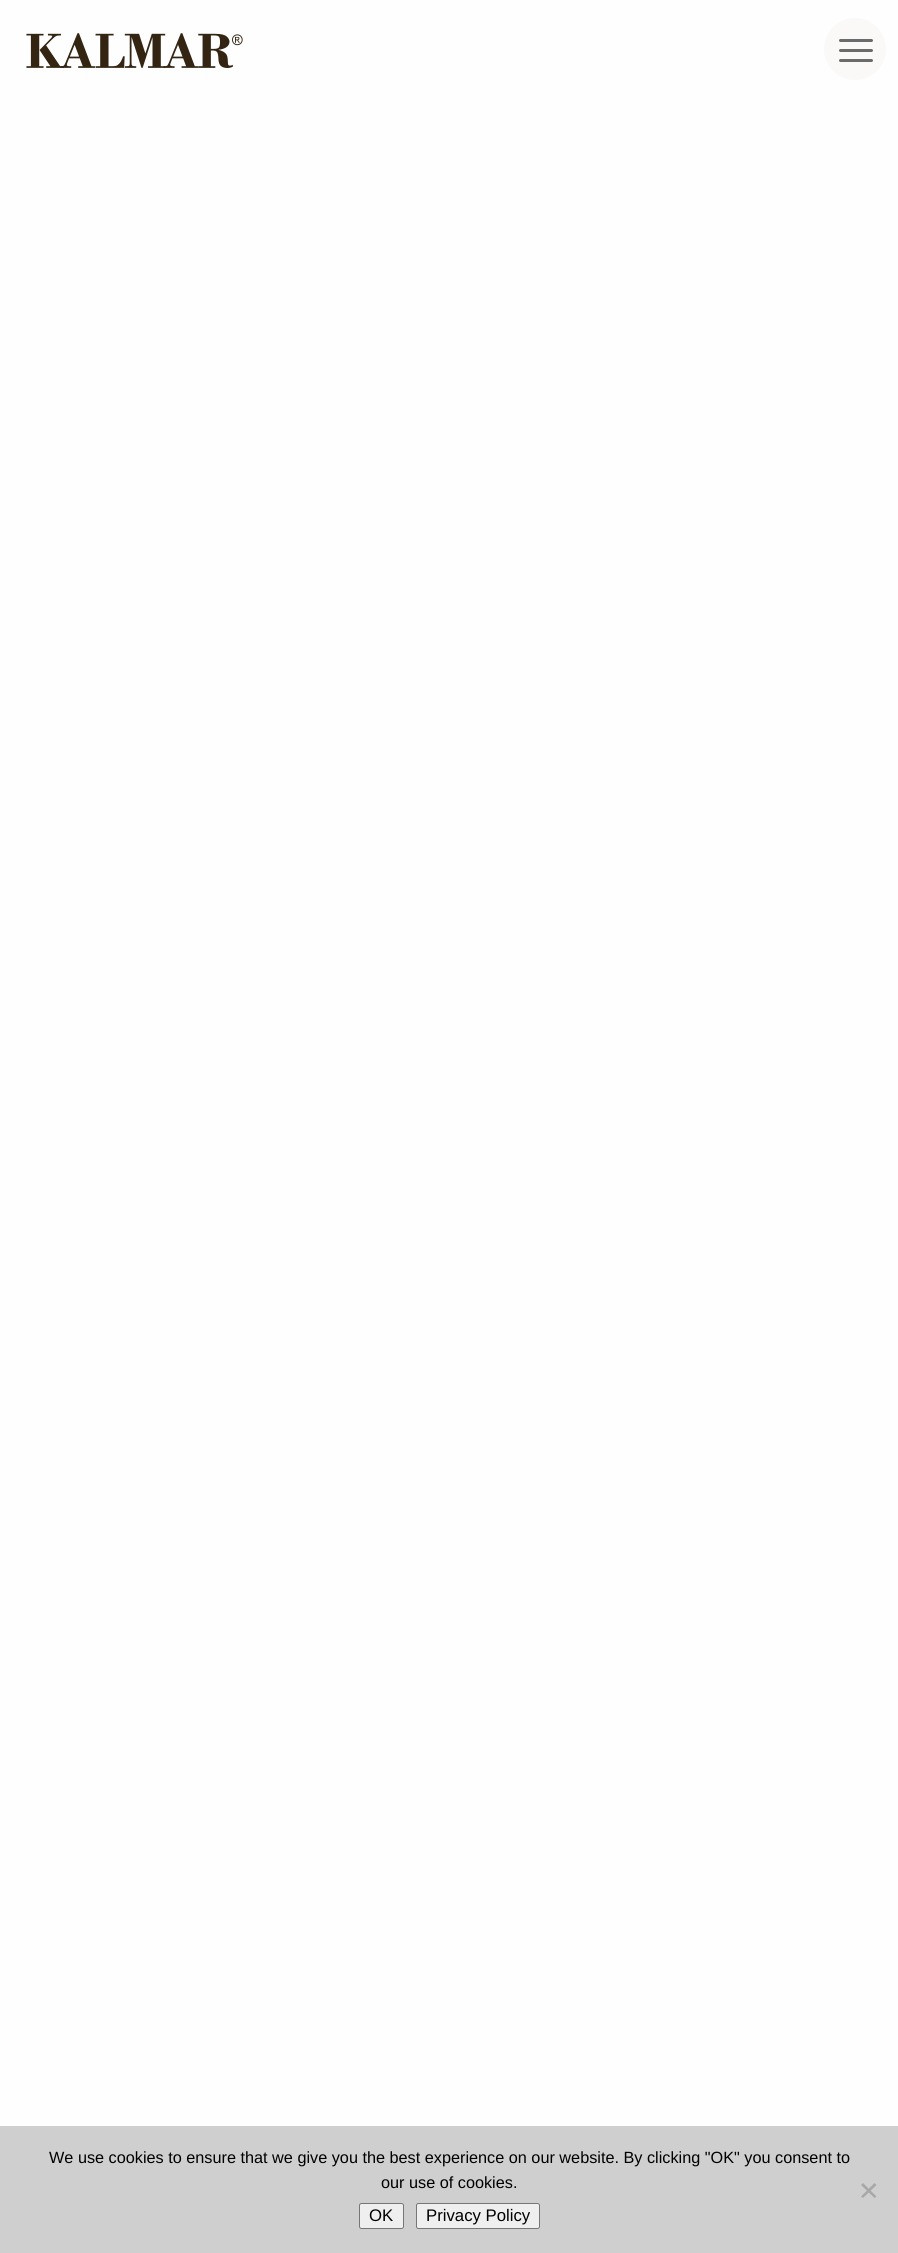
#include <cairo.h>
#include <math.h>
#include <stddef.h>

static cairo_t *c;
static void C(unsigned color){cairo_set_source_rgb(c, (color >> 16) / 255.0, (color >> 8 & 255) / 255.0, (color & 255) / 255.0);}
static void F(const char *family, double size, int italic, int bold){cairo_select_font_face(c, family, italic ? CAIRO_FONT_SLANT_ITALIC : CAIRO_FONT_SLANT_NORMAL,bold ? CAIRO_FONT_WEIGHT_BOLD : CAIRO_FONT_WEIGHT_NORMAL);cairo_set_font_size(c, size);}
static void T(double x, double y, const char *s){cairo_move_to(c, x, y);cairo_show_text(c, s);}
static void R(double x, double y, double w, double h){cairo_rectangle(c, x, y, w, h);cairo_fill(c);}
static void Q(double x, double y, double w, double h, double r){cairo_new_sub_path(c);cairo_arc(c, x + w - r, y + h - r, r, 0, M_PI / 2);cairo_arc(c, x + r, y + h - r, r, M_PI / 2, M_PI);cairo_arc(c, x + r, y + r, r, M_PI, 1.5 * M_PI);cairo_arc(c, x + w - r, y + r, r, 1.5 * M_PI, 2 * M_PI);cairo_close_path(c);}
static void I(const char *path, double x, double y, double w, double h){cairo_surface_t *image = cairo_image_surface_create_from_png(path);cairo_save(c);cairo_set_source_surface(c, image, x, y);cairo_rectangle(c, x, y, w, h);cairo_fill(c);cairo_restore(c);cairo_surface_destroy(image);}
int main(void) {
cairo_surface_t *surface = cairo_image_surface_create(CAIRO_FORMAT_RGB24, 898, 2253);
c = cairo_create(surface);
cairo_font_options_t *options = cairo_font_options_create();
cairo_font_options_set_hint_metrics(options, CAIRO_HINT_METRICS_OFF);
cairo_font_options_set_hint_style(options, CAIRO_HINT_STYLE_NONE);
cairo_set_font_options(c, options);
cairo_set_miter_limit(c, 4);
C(0xfefefe);
cairo_paint(c);
I("1.png",26,33,217,35);
C(0xfaf9f8);
cairo_arc(c,855,49,31,0,2 * M_PI);
cairo_fill(c);
C(0x6b6b6b);
Q(839,49,34,3,1.5);
cairo_fill(c);
Q(839,39,34,3,1.5);
cairo_fill(c);
Q(839,59,34,3,1.5);
cairo_fill(c);
C(0xcfcfcf);
R(0,2126,898,127);
F("Liberation Sans",16.25,0,0);
C(0x000000);
T(49,2163,"We use cookies to ensure that we give you the best experience on our website. By clicking \"OK\" you consent to");
T(381,2188,"our use of cookies.");
C(0xa8a8a8);
cairo_new_path(c);
cairo_move_to(c,874.5,2183);
cairo_line_to(c,876.5,2185);
cairo_line_to(c,863,2198);
cairo_line_to(c,861,2196.5);
cairo_close_path(c);
cairo_fill(c);
cairo_new_path(c);
cairo_move_to(c,861,2185);
cairo_line_to(c,863,2183);
cairo_line_to(c,876.5,2196.5);
cairo_line_to(c,874.5,2198);
cairo_close_path(c);
cairo_fill(c);
C(0xefefef);
Q(359.5,2203.5,44,25,2);
cairo_fill_preserve(c);
C(0x767676);
cairo_set_line_width(c,1);
cairo_stroke(c);
F("Liberation Sans",16.75,0,0);
C(0x000000);
T(369,2221,"OK");
C(0xefefef);
Q(416.5,2203.5,123,25,2);
cairo_fill_preserve(c);
C(0x767676);
cairo_stroke(c);
C(0x000000);
T(426,2221,"Privacy Policy");
cairo_surface_write_to_png(surface, "o.png");
cairo_font_options_destroy(options);
cairo_destroy(c);
cairo_surface_destroy(surface);
return 0;
}
